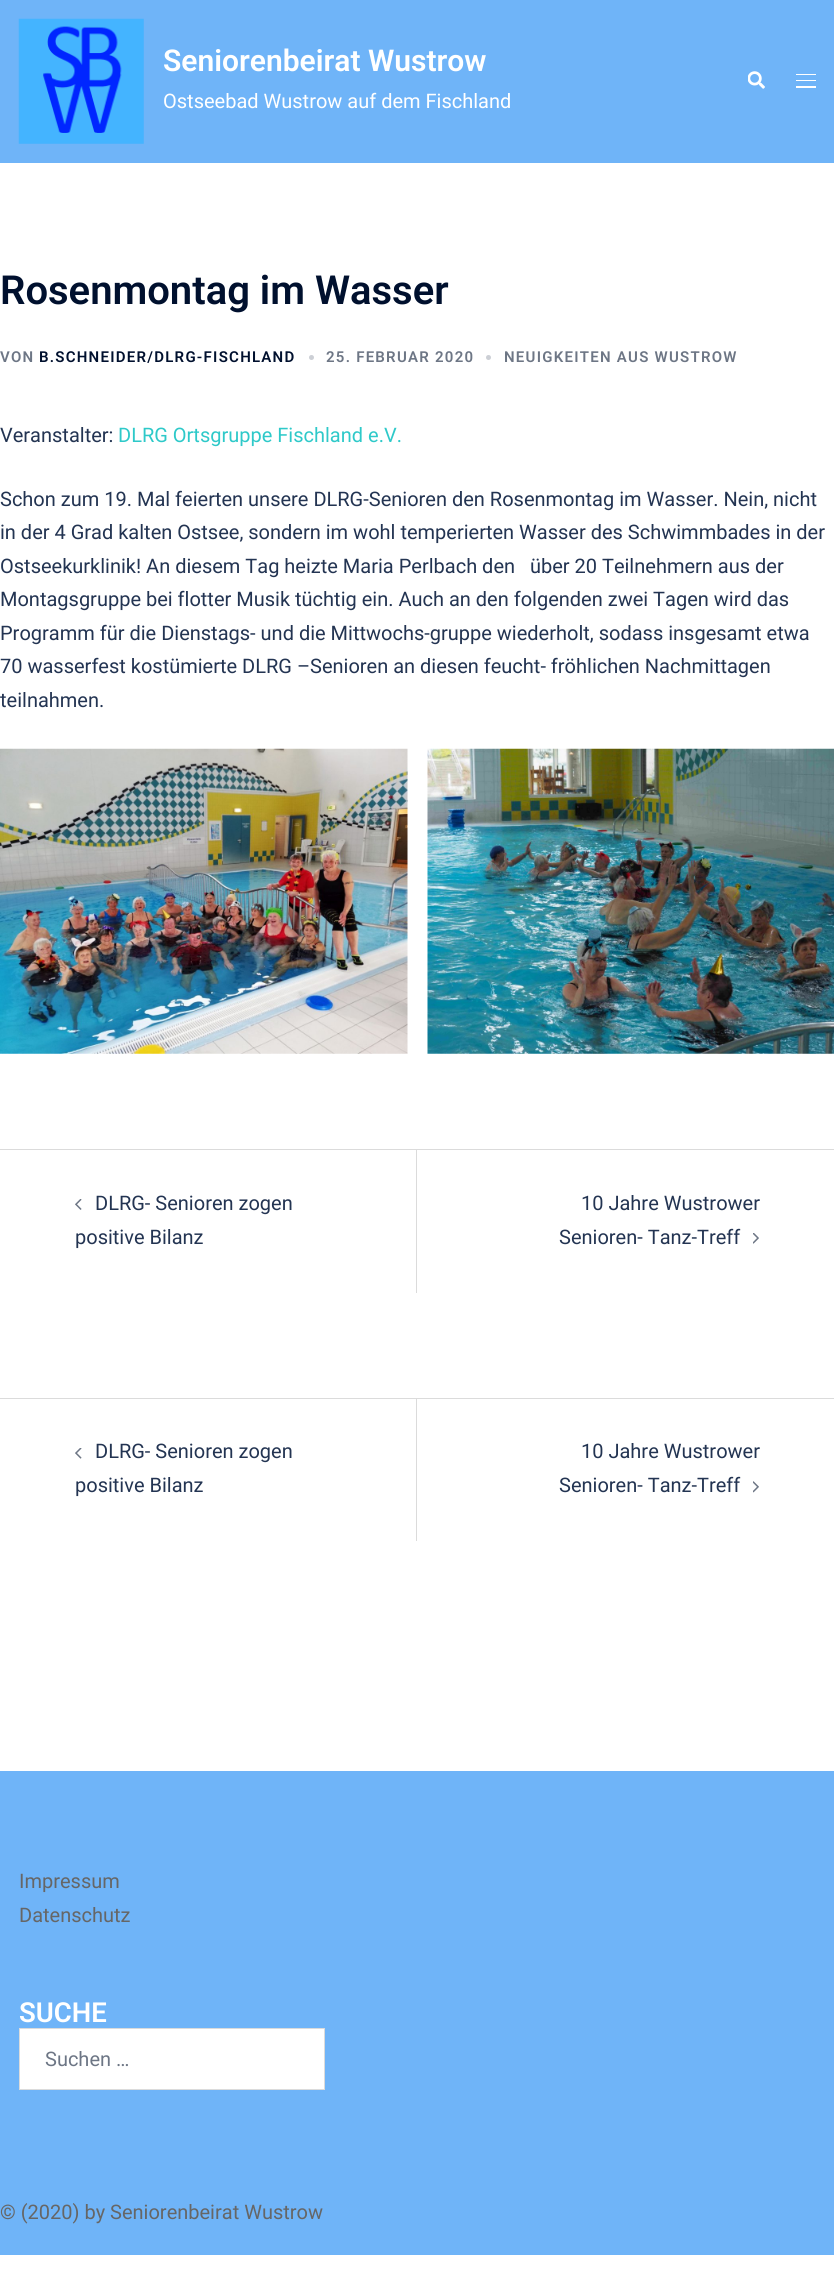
#include <cairo.h>
#include <math.h>
#include <stddef.h>

static cairo_t *c;
static void C(unsigned color){cairo_set_source_rgb(c, (color >> 16) / 255.0, (color >> 8 & 255) / 255.0, (color & 255) / 255.0);}
static void F(const char *family, double size, int italic, int bold){cairo_select_font_face(c, family, italic ? CAIRO_FONT_SLANT_ITALIC : CAIRO_FONT_SLANT_NORMAL,bold ? CAIRO_FONT_WEIGHT_BOLD : CAIRO_FONT_WEIGHT_NORMAL);cairo_set_font_size(c, size);}
static void T(double x, double y, const char *s){cairo_move_to(c, x, y);cairo_show_text(c, s);}
static void L(double x, double y, const char *s, double letter, double word){cairo_move_to(c, x, y);while (*s) {char ch[5] = {0};int n = 0;do ch[n++] = *s++; while ((*s & 0xC0) == 0x80);cairo_show_text(c, ch);cairo_rel_move_to(c, letter + word * (*ch == ' '), 0);}}
static void R(double x, double y, double w, double h){cairo_rectangle(c, x, y, w, h);cairo_fill(c);}
static void I(const char *path, double x, double y, double w, double h){cairo_surface_t *image = cairo_image_surface_create_from_png(path);cairo_save(c);cairo_set_source_surface(c, image, x, y);cairo_rectangle(c, x, y, w, h);cairo_fill(c);cairo_restore(c);cairo_surface_destroy(image);}
int main(void) {
cairo_surface_t *surface = cairo_image_surface_create(CAIRO_FORMAT_RGB24, 834, 2286);
c = cairo_create(surface);
cairo_font_options_t *options = cairo_font_options_create();
cairo_font_options_set_hint_metrics(options, CAIRO_HINT_METRICS_OFF);
cairo_font_options_set_hint_style(options, CAIRO_HINT_STYLE_NONE);
cairo_set_font_options(c, options);
cairo_set_miter_limit(c, 4);
C(0xffffff);
cairo_paint(c);
C(0x6fb4f8);
R(0,0,834,163);
I("1.png",18,18,126,126);
F("Roboto SemiBold",30,0,0);
C(0xffffff);
T(163,71,"Seniorenbeirat Wustrow");
F("Roboto",20,0,0);
T(163,108,"Ostseebad Wustrow auf dem Fischland");
I("2.png",748,71,17,18);
R(796,74,20,1);
R(796,80,20,1);
R(796,86,20,2);
F("Roboto SemiBold",40,0,0);
C(0x00102e);
T(0,304,"Rosenmontag im Wasser");
F("Roboto SemiBold",15,0,0);
C(0x6d7685);
L(0,362,"VON",1.25,0);
C(0x00102e);
L(39,362,"B.SCHNEIDER/DLRG-FISCHLAND",1.25,0);
C(0xcccfd5);
cairo_new_path(c);
cairo_arc(c,311.5,357.5,2.5,0,2 * M_PI);
cairo_fill(c);
C(0x6d7685);
L(326,362,"25. FEBRUAR 2020",1.25,0);
C(0xcccfd5);
cairo_new_path(c);
cairo_arc(c,488.5,357.5,2.5,0,2 * M_PI);
cairo_fill(c);
C(0x6d7685);
L(504,362,"NEUIGKEITEN AUS WUSTROW",1.25,0);
F("Roboto",20,0,0);
C(0x233452);
T(0,442,"Veranstalter:");
C(0x2ec9c9);
T(118,442,"DLRG Ortsgruppe Fischland e.V.");
C(0x233452);
T(0,506,"Schon zum 19. Mal feierten unsere DLRG-Senioren den Rosenmontag im Wasser. Nein, nicht");
T(0,539,"in der 4 Grad kalten Ostsee, sondern im wohl temperierten Wasser des Schwimmbades in der");
T(0,573,"Ostseekurklinik! An diesem Tag heizte Maria Perlbach den   über 20 Teilnehmern aus der");
T(0,606,"Montagsgruppe bei flotter Musik tüchtig ein. Auch an den folgenden zwei Tagen wird das");
T(0,640,"Programm für die Dienstags- und die Mittwochs-gruppe wiederholt, sodass insgesamt etwa");
T(0,673,"70 wasserfest kostümierte DLRG –Senioren an diesen feucht- fröhlichen Nachmittagen");
T(0,707,"teilnahmen.");
I("3.png",0,748,408,306);
I("4.png",427,748,407,306);
C(0xdbdbdb);
R(0,1149,834,1);
R(416,1150,1,143);
I("5.png",75,1199,7,11);
C(0x233452);
T(95,1210,"DLRG- Senioren zogen");
T(75,1244,"positive Bilanz");
T(581,1210,"10 Jahre Wustrower");
T(559,1244,"Senioren- Tanz-Treff");
I("6.png",753,1233,6,11);
C(0xdbdbdb);
R(0,1398,834,1);
R(416,1399,1,142);
I("7.png",75,1448,7,11);
C(0x233452);
T(95,1458,"DLRG- Senioren zogen");
T(75,1492,"positive Bilanz");
T(581,1458,"10 Jahre Wustrower");
T(559,1492,"Senioren- Tanz-Treff");
I("8.png",753,1481,6,12);
C(0x6fb4f8);
R(0,1771,834,484);
C(0x666666);
T(19,1888,"Impressum");
T(19,1922,"Datenschutz");
F("Roboto SemiBold",27.5,0,0);
C(0xffffff);
T(19,2022,"SUCHE");
cairo_rectangle(c,19.5,2028.5,305,61);
cairo_fill_preserve(c);
C(0xdbdbdb);
cairo_set_line_width(c,1);
cairo_stroke(c);
F("Roboto",20,0,0);
C(0x6d7685);
T(45,2066,"Suchen …");
C(0x666666);
T(0,2219,"© (2020) by Seniorenbeirat Wustrow");
cairo_surface_write_to_png(surface, "o.png");
cairo_font_options_destroy(options);
cairo_destroy(c);
cairo_surface_destroy(surface);
return 0;
}
